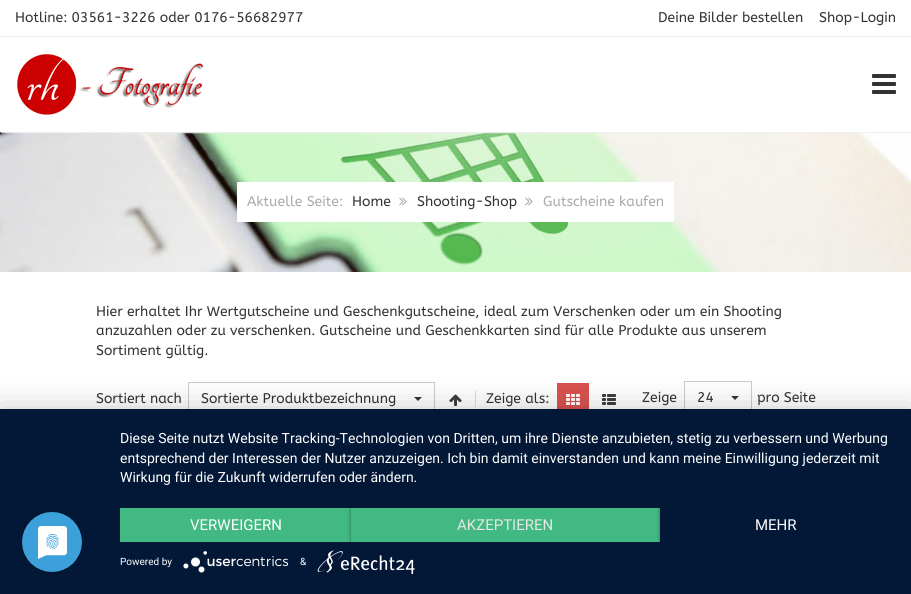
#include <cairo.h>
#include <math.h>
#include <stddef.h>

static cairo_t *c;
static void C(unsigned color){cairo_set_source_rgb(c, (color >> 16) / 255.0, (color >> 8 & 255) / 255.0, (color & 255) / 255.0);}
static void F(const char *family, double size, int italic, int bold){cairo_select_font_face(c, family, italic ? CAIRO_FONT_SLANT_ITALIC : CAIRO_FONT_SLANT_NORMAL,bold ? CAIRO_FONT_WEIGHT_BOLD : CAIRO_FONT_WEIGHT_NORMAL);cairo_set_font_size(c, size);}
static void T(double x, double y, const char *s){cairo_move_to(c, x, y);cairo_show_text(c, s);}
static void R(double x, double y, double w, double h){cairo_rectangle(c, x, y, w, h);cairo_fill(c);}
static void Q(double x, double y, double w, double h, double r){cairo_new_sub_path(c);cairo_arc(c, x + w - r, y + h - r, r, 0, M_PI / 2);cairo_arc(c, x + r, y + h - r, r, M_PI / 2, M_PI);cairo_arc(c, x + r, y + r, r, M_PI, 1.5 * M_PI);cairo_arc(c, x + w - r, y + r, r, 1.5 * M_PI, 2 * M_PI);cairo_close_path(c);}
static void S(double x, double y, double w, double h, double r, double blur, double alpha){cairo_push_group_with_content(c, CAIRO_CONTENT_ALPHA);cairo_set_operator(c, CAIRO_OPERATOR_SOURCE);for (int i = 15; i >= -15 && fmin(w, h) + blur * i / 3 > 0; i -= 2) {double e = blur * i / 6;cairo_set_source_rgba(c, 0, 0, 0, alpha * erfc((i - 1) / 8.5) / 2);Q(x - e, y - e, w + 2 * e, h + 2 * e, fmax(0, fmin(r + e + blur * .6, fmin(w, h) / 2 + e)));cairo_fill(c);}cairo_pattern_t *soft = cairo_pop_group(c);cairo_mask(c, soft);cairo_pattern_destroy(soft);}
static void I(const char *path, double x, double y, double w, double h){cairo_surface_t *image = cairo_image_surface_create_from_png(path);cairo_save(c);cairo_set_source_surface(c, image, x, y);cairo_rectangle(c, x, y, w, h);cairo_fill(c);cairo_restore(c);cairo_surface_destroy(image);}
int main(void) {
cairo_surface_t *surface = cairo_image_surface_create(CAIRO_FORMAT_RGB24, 911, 594);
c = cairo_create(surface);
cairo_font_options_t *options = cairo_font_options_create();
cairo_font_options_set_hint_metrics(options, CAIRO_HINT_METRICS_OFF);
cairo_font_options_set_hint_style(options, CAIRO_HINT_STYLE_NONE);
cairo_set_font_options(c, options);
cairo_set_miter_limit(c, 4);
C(0xffffff);
cairo_paint(c);
C(0xeeeeee);
R(0,36,911,1);
F("ABeeZee",14,0,0);
C(0x333333);
T(15,22,"Hotline: 03561-3226 oder 0176-56682977");
T(658,22,"Deine Bilder bestellen");
T(819,22,"Shop-Login");
I("3.png",0,132,911,140);
cairo_save(c);
cairo_rectangle(c,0,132,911,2);
cairo_clip(c);
C(0xefefef);
S(1,38,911,95,0,.5,1);
cairo_restore(c);
I("1.png",17,54,186,61);
I("2.png",872,74,24,20);
C(0xffffff);
R(237,182,437,40);
C(0xaaaaaa);
T(247,206,"Aktuelle Seite:");
C(0x333333);
T(352,206,"Home");
I("4.png",399,197,8,9);
T(417,206,"Shooting-Shop");
I("4.png",525,197,8,9);
C(0xaaaaaa);
T(543,206,"Gutscheine kaufen");
C(0x333333);
T(96,316,"Hier erhaltet Ihr Wertgutscheine und Geschenkgutscheine, ideal zum Verschenken oder um ein Shooting");
T(96,335,"anzuzahlen oder zu verschenken. Gutscheine und Geschenkkarten sind für alle Produkte aus unserem");
T(96,355,"Sortiment gültig.");
T(96,403,"Sortiert nach");
cairo_rectangle(c,188.5,382.5,246,33);
C(0xcccccc);
cairo_set_line_width(c,1);
cairo_stroke(c);
C(0x333333);
T(201,403,"Sortierte Produktbezeichnung");
cairo_new_path(c);
cairo_move_to(c,414,397);
cairo_line_to(c,422,397);
cairo_line_to(c,418,401);
cairo_close_path(c);
cairo_fill(c);
I("5.png",449,394,13,12);
C(0xdddddd);
R(475,390,1,17);
C(0x333333);
T(486,403,"Zeige als:");
C(0xd9534f);
R(557,383,32,26);
I("6.png",566,394,14,11);
I("7.png",602,394,14,11);
C(0x333333);
T(642,402,"Zeige");
cairo_rectangle(c,684.5,381.5,67,33);
C(0xcccccc);
cairo_stroke(c);
C(0x333333);
T(697,402,"24");
cairo_new_path(c);
cairo_move_to(c,731,396);
cairo_line_to(c,739,396);
cairo_line_to(c,735,400);
cairo_close_path(c);
cairo_fill(c);
T(757,402,"pro Seite");
C(0x000000);
S(0,415,911,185,0,18,.3);
C(0x021836);
R(0,409,911,185);
I("8.png",21,511,62,62);
F("Roboto",14,0,0);
C(0xffffff);
T(120,443,"Diese Seite nutzt Website Tracking-Technologien von Dritten, um ihre Dienste anzubieten, stetig zu verbessern und Werbung");
T(120,463,"entsprechend der Interessen der Nutzer anzuzeigen. Ich bin damit einverstanden und kann meine Einwilligung jederzeit mit");
T(120,482,"Wirkung für die Zukunft widerrufen oder ändern.");
C(0x42b983);
R(120,508,231,34);
F("Roboto",15,0,0);
C(0xffffff);
T(190,530,"VERWEIGERN");
cairo_save(c);
cairo_rectangle(c,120,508,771,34);
cairo_clip(c);
C(0x000000);
S(351,509,309,34,0,2,.4);
cairo_restore(c);
C(0x42b983);
R(351,508,309,34);
C(0xe6e6e6);
T(457,530,"AKZEPTIEREN");
cairo_save(c);
cairo_rectangle(c,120,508,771,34);
cairo_clip(c);
C(0x000000);
S(660,509,231,34,0,2,.4);
cairo_restore(c);
C(0x021836);
R(660,508,231,34);
C(0xffffff);
T(755,530,"MEHR");
F("Roboto",10,0,0);
T(120,565,"Powered by");
I("9.png",183,551,106,22);
T(300,565,"&");
I("10.png",317,550,98,24);
cairo_surface_write_to_png(surface, "o.png");
cairo_font_options_destroy(options);
cairo_destroy(c);
cairo_surface_destroy(surface);
return 0;
}
